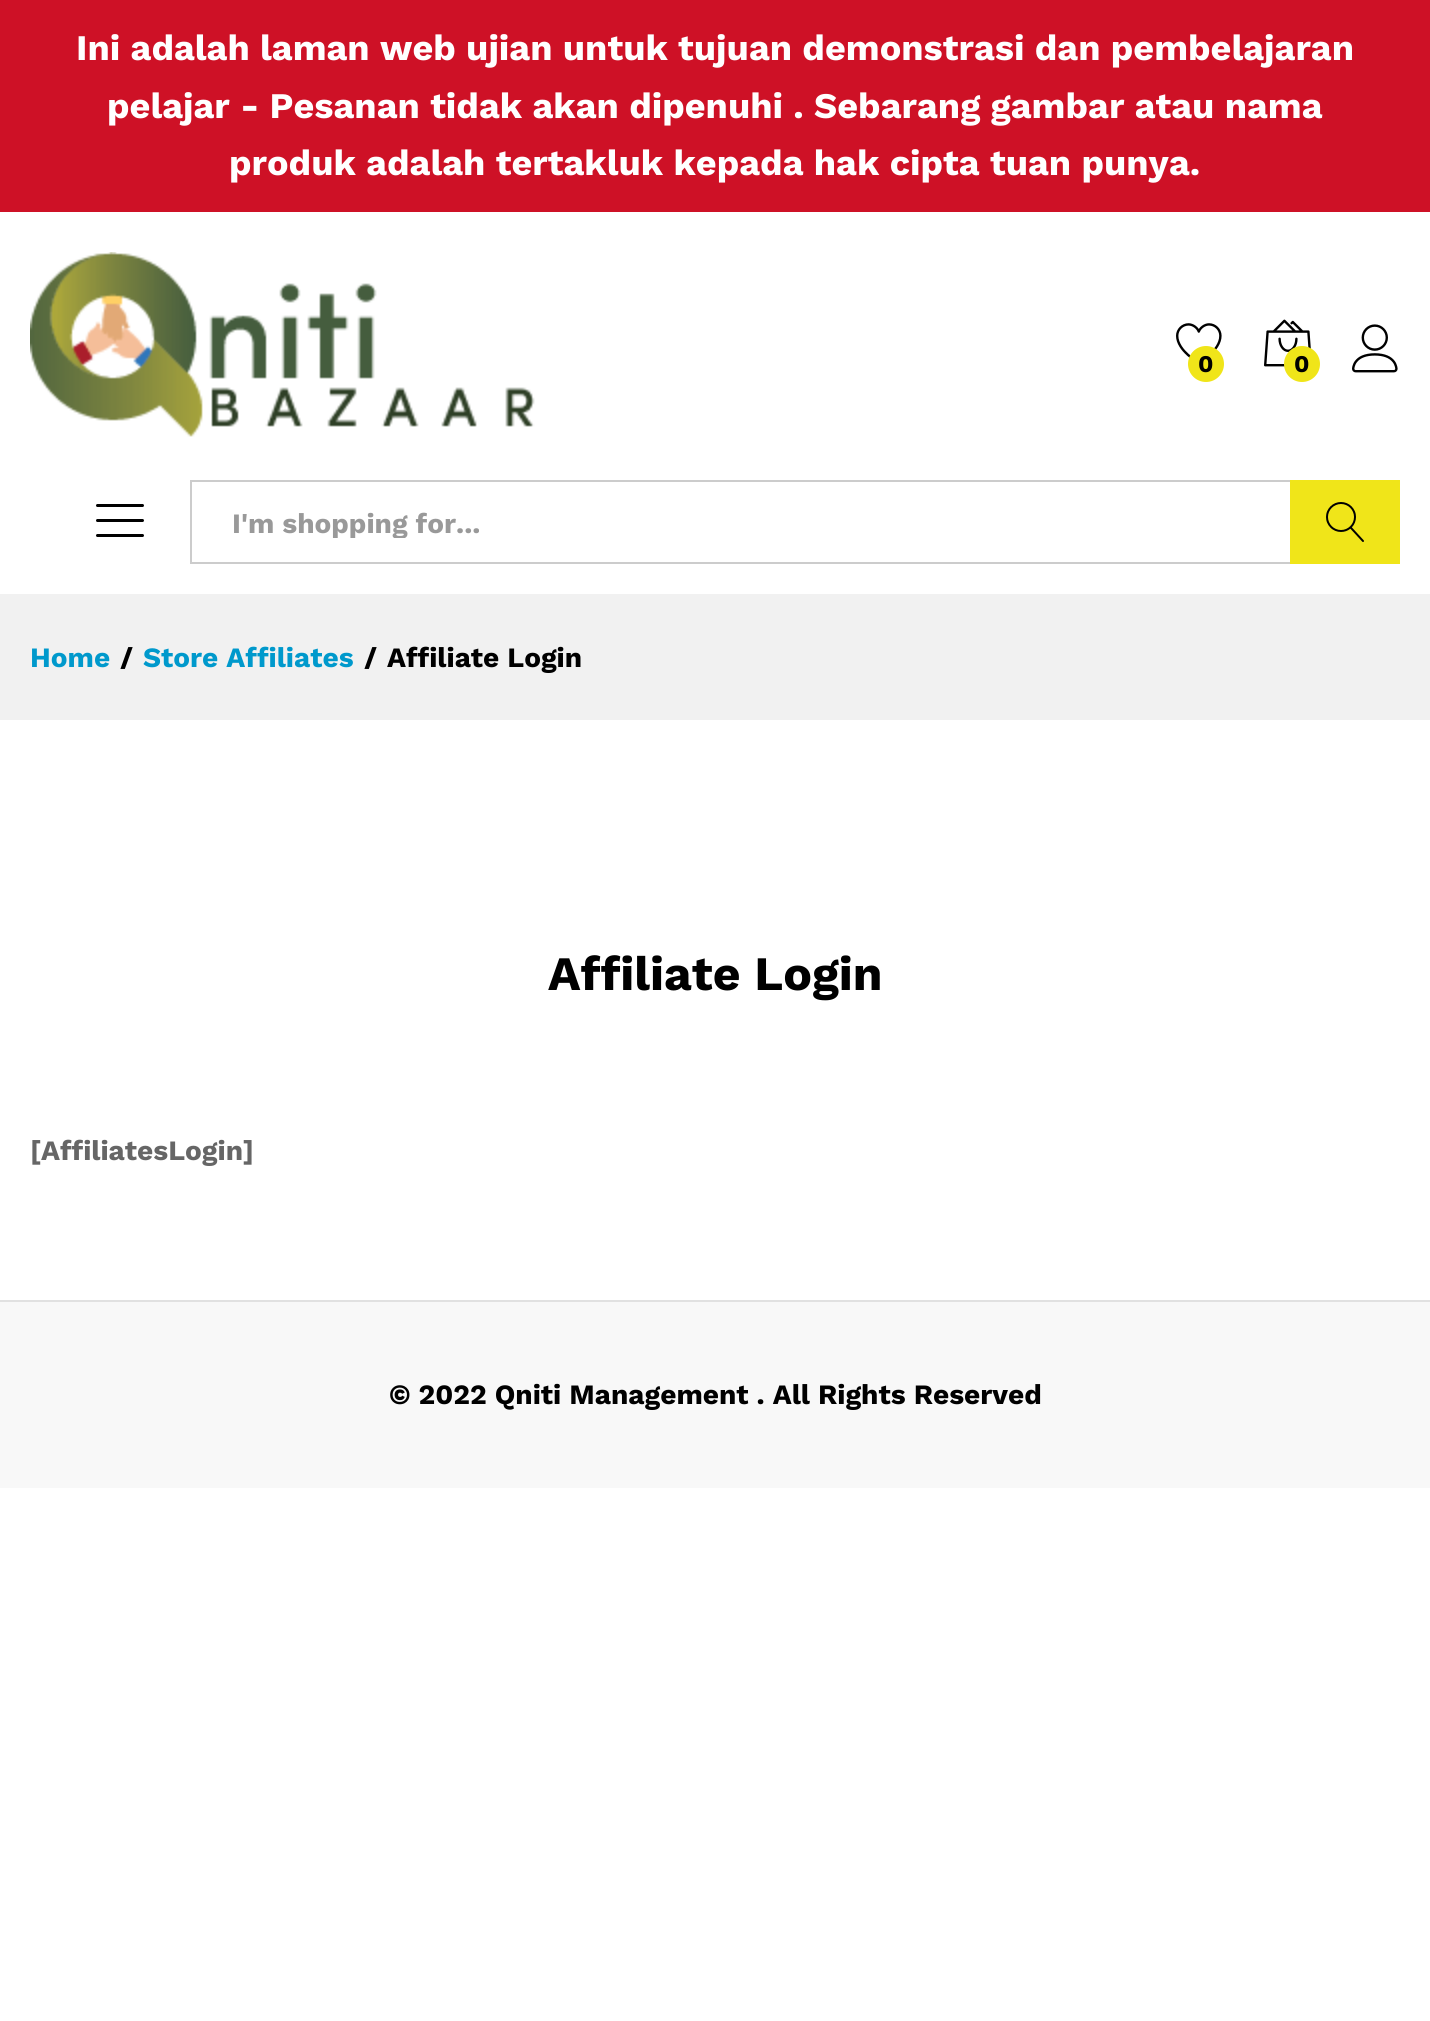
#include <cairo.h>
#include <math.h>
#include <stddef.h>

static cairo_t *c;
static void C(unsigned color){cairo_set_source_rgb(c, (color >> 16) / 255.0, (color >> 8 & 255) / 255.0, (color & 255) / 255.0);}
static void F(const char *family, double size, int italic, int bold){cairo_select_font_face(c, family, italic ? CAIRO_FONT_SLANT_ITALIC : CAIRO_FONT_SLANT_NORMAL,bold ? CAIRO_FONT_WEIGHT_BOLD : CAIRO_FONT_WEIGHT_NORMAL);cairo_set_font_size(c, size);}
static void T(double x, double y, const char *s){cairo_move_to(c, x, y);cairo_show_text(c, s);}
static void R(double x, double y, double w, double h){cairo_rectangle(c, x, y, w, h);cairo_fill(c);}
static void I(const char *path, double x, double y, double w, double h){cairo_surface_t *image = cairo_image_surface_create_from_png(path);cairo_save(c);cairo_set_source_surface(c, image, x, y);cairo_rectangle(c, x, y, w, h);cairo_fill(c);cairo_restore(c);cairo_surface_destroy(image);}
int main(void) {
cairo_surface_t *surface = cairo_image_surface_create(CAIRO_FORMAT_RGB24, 1430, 2021);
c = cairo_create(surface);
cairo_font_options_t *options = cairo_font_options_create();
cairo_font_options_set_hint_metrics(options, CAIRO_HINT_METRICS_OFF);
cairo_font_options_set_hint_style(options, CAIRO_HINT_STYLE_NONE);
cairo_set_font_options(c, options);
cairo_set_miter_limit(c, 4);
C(0xffffff);
cairo_paint(c);
C(0xce1126);
R(0,0,1430,212);
F("Work Sans",36,0,1);
C(0xffffff);
T(76,60,"Ini adalah laman web ujian untuk tujuan demonstrasi dan pembelajaran");
T(107,118,"pelajar - Pesanan tidak akan dipenuhi . Sebarang gambar atau nama");
T(229,175,"produk adalah tertakluk kepada hak cipta tuan punya.");
I("1.png",30,252,505,185);
I("2.png",1176,323,46,35);
C(0xf0e519);
cairo_arc(c,1206,364,18,0,2 * M_PI);
cairo_fill(c);
F("Work Sans",24,0,1);
C(0x000000);
T(1198,372,"0");
I("3.png",1264,319,47,48);
C(0xf0e519);
cairo_arc(c,1302,364,18,0,2 * M_PI);
cairo_fill(c);
C(0x000000);
T(1294,372,"0");
I("4.png",1352,324,46,49);
I("5.png",96,504,48,33);
C(0xcccccc);
R(190,480,1100,2);
R(190,562,1100,2);
R(190,480,2,84);
cairo_save(c);
cairo_rectangle(c,232,506,1018,32);
cairo_clip(c);
F("Work Sans",28,0,1);
C(0x999999);
T(232,533,"I'm shopping for...");
cairo_restore(c);
C(0xf0e519);
R(1290,480,110,84);
I("6.png",1326,502,38,40);
C(0xf1f1f1);
R(0,594,1430,126);
F("Work Sans",28,0,1);
C(0x0099cc);
T(30,667,"Home");
C(0x000000);
T(120,667,"/");
C(0x0099cc);
T(143,667,"Store Affiliates");
C(0x000000);
T(364,667,"/");
T(387,667,"Affiliate Login");
F("Work Sans",48,0,1);
T(548,990,"Affiliate Login");
F("Work Sans",28,0,1);
C(0x666666);
T(30,1160,"[AffiliatesLogin]");
C(0xe1e1e1);
R(0,1300,1430,2);
C(0xf8f8f8);
R(0,1302,1430,186);
C(0x000000);
T(389,1404,"© 2022 Qniti Management . All Rights Reserved");
cairo_surface_write_to_png(surface, "o.png");
cairo_font_options_destroy(options);
cairo_destroy(c);
cairo_surface_destroy(surface);
return 0;
}
